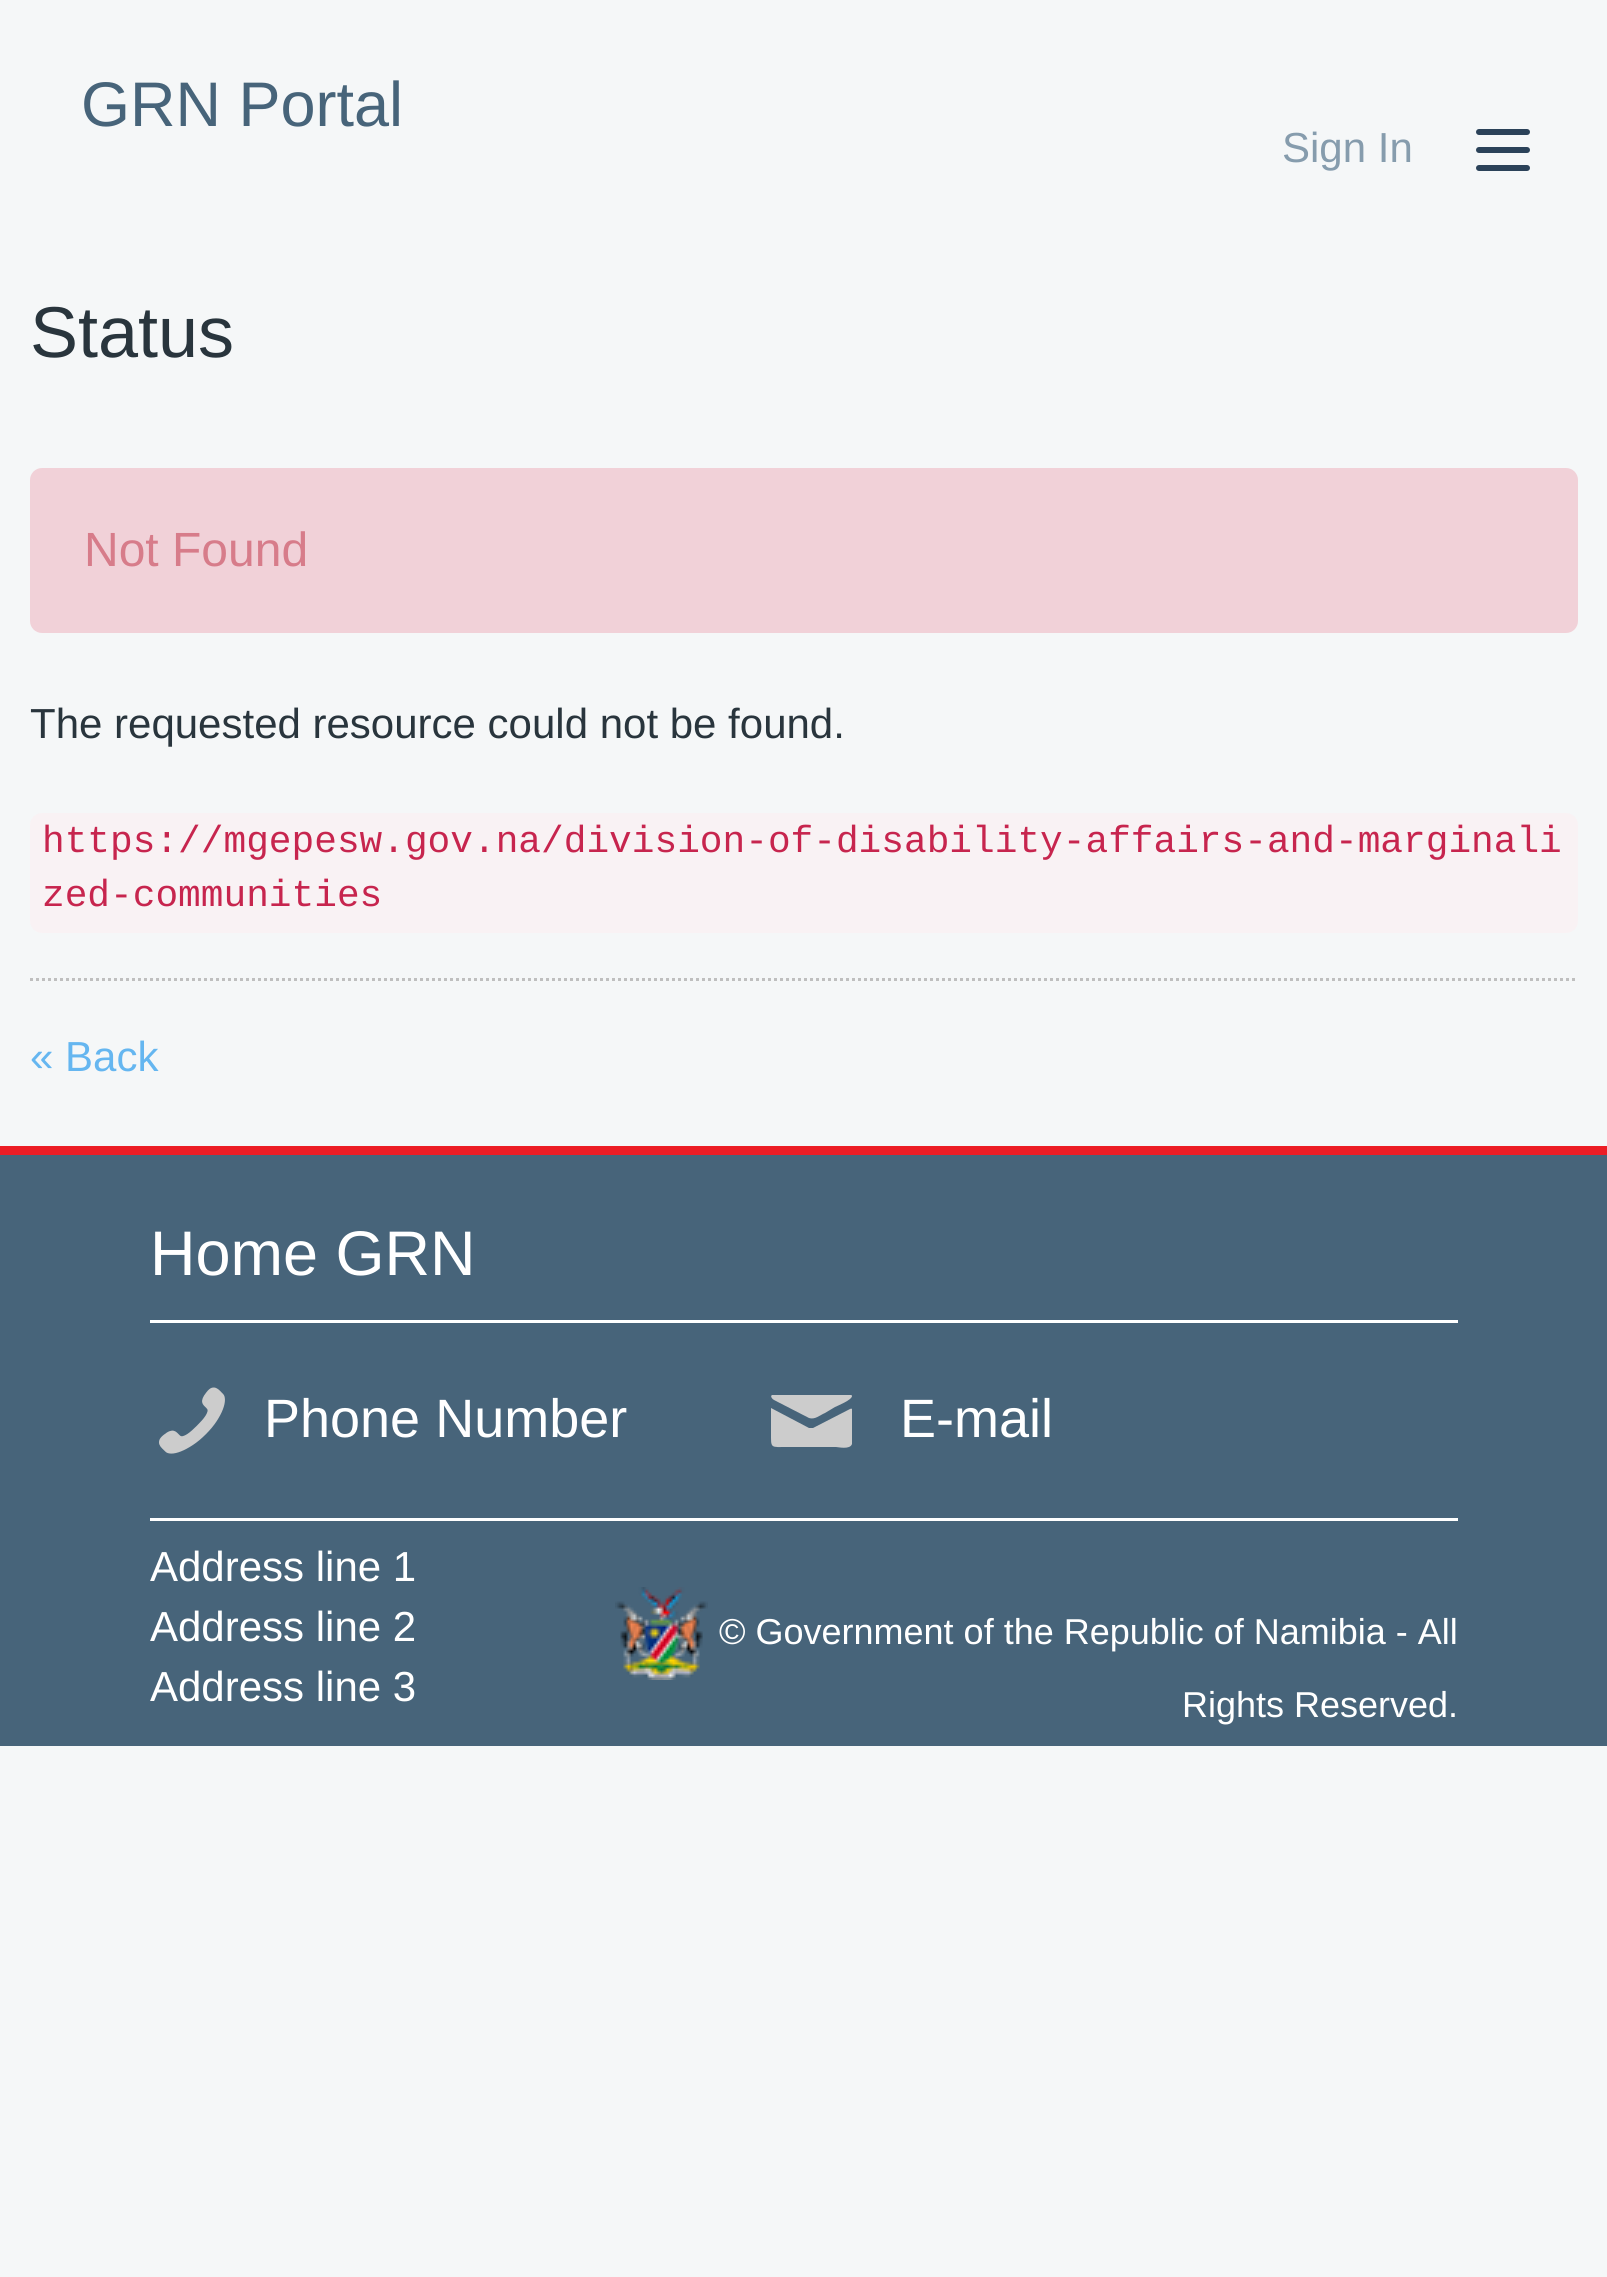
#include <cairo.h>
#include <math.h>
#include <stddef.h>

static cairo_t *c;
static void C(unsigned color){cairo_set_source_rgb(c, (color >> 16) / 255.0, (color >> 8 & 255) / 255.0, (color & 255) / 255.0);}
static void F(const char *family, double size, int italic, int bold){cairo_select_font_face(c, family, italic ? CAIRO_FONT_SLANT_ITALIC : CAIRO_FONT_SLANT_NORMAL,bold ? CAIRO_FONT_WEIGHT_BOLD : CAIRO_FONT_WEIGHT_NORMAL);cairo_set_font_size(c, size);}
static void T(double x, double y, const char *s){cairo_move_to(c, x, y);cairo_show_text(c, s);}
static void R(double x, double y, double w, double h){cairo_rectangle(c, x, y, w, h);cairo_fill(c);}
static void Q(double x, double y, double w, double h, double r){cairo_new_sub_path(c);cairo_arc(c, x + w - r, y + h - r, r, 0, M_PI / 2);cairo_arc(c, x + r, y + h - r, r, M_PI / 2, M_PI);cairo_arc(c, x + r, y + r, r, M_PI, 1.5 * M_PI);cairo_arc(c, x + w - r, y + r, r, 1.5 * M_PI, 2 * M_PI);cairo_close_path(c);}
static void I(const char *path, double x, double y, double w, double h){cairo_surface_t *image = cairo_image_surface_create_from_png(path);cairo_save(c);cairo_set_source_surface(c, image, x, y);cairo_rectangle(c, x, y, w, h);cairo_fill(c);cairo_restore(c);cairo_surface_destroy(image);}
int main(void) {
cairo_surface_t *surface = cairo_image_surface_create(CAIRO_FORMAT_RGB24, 1607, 2277);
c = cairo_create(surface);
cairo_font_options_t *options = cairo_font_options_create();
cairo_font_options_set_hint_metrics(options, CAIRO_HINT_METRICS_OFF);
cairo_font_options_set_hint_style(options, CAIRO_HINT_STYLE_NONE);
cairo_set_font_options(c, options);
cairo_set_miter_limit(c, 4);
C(0xf5f7f8);
cairo_paint(c);
F("Liberation Sans",63,0,0);
C(0x47647a);
T(81,126,"GRN Portal");
F("Liberation Sans",42,0,0);
C(0x869cad);
T(1282,162,"Sign In");
C(0x2b4259);
Q(1476,129,54,6,3);
cairo_fill(c);
Q(1476,147,54,6,3);
cairo_fill(c);
Q(1476,165,54,6,3);
cairo_fill(c);
F("Liberation Sans",72,0,0);
C(0x29353d);
T(30,357,"Status");
C(0xf1d1d8);
Q(30,468,1548,165,12);
cairo_fill(c);
F("Liberation Sans",48,0,0);
C(0xd77c8a);
T(84,566,"Not Found");
F("Liberation Sans",42,0,0);
C(0x29353d);
T(30,738,"The requested resource could not be found.");
C(0xf9f2f4);
Q(30,813,1548,120,12);
cairo_fill(c);
F("Liberation Mono",37.8,0,0);
C(0xc7254e);
T(42,852,"https://mgepesw.gov.na/division-of-disability-affairs-and-marginali");
T(42,906,"zed-communities");
cairo_new_path(c);
cairo_move_to(c,30,979.5);
cairo_line_to(c,1578,979.5);
C(0xbfbfbf);
cairo_set_line_width(c,3);
cairo_set_dash(c,(double[]){3,3},2,0);
cairo_stroke(c);
F("Liberation Sans",42,0,0);
C(0x65b6f0);
T(30,1071,"« Back");
C(0x47647a);
R(0,1155,1607,591);
C(0xec1d25);
R(0,1146,1607,9);
F("Liberation Sans",63,0,0);
C(0xffffff);
T(150,1275,"Home GRN");
R(150,1320,1308,3);
R(150,1518,1308,3);
I("1.png",159,1387,66,67);
F("Liberation Sans",54,0,0);
T(264,1437,"Phone Number");
cairo_save(c);
cairo_rectangle(c,771,1395,81,54);
cairo_clip(c);
C(0xcccccc);
cairo_new_path(c);
cairo_move_to(c,850,1409);
cairo_curve_to(c,854,1407,852,1414,852,1415);
cairo_line_to(c,852,1444);
cairo_curve_to(c,850,1450,838,1447,836,1447);
cairo_line_to(c,788,1447);
cairo_curve_to(c,770,1447,771,1449,771,1432);
cairo_line_to(c,771,1408);
cairo_line_to(c,809,1428);
cairo_line_to(c,813,1428);
cairo_close_path(c);
cairo_move_to(c,774,1400);
cairo_curve_to(c,772,1399,770,1396,772,1395);
cairo_line_to(c,837,1395);
cairo_curve_to(c,838,1395,852,1393,852,1396);
cairo_curve_to(c,852,1400,837,1406,835,1407);
cairo_line_to(c,825,1413);
cairo_curve_to(c,820,1415,815,1420,809,1418);
cairo_close_path(c);
cairo_fill(c);
cairo_restore(c);
T(900,1437,"E-mail");
F("Liberation Sans",42,0,0);
T(150,1581,"Address line 1");
T(150,1641,"Address line 2");
T(150,1701,"Address line 3");
I("2.png",615,1587,93,93);
F("Liberation Sans",36,0,0);
T(719,1644,"© Government of the Republic of Namibia - All");
T(1182,1717,"Rights Reserved.");
cairo_surface_write_to_png(surface, "o.png");
cairo_font_options_destroy(options);
cairo_destroy(c);
cairo_surface_destroy(surface);
return 0;
}
